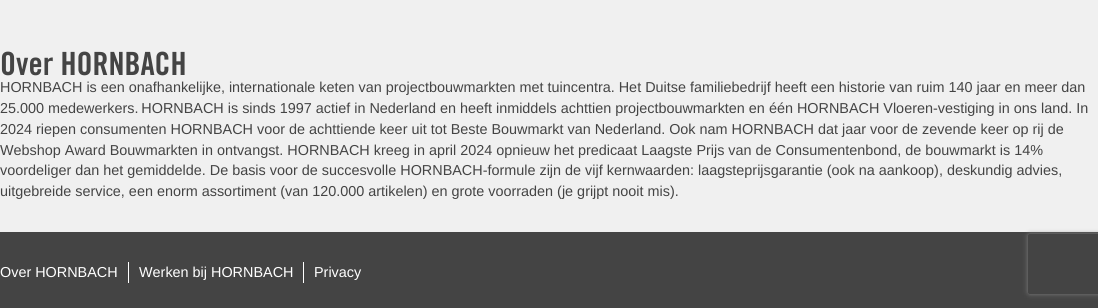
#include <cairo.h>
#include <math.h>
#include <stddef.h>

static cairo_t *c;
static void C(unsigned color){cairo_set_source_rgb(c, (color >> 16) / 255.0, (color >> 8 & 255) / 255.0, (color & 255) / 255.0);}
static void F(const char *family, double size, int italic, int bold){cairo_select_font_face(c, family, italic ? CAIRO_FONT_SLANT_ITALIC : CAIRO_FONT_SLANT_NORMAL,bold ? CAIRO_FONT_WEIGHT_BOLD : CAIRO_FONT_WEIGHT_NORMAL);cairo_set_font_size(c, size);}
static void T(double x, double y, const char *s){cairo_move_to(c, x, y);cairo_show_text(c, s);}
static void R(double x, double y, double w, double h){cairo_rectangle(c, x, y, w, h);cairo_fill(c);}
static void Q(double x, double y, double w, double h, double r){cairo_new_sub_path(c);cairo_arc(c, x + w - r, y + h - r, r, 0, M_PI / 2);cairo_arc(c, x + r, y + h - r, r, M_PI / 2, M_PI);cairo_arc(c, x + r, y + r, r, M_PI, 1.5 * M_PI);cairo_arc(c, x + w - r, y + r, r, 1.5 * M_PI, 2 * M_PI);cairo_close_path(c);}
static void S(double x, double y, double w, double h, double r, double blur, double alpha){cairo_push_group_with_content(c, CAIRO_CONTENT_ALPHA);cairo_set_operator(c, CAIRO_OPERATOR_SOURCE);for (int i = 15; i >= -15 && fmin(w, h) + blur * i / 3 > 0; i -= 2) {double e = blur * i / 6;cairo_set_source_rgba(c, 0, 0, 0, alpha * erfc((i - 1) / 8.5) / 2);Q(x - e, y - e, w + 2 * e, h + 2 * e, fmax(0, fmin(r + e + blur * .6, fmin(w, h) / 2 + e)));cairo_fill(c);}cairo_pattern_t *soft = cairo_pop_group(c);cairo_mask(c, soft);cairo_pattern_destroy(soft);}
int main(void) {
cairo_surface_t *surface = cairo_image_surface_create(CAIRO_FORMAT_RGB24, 1098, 308);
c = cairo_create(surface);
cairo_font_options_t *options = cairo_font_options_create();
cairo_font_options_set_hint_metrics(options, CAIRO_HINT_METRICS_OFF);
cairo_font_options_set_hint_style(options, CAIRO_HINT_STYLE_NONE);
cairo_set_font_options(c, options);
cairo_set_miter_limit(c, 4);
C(0xf0f0f0);
cairo_paint(c);
F("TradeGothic",32,0,1);
C(0x444444);
T(0,75,"Over HORNBACH");
F("Liberation Sans",14.4,0,0);
T(0,92,"HORNBACH is een onafhankelijke, internationale keten van projectbouwmarkten met tuincentra. Het Duitse familiebedrijf heeft een historie van ruim 140 jaar en meer dan");
T(0,113,"25.000 medewerkers. HORNBACH is sinds 1997 actief in Nederland en heeft inmiddels achttien projectbouwmarkten en één HORNBACH Vloeren-vestiging in ons land. In");
T(0,134,"2024 riepen consumenten HORNBACH voor de achttiende keer uit tot Beste Bouwmarkt van Nederland. Ook nam HORNBACH dat jaar voor de zevende keer op rij de");
T(0,155,"Webshop Award Bouwmarkten in ontvangst. HORNBACH kreeg in april 2024 opnieuw het predicaat Laagste Prijs van de Consumentenbond, de bouwmarkt is 14%");
T(0,175,"voordeliger dan het gemiddelde. De basis voor de succesvolle HORNBACH-formule zijn de vijf kernwaarden: laagsteprijsgarantie (ook na aankoop), deskundig advies,");
T(0,196,"uitgebreide service, een enorm assortiment (van 120.000 artikelen) en grote voorraden (je grijpt nooit mis).");
R(0,232,1098,76);
C(0xffffff);
T(0,277,"Over HORNBACH");
R(128,262,1,21);
T(139,277,"Werken bij HORNBACH");
R(303,262,1,21);
T(314,277,"Privacy");
cairo_save(c);
cairo_set_fill_rule(c,CAIRO_FILL_RULE_EVEN_ODD);
cairo_new_path(c);
cairo_move_to(c,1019,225);
cairo_line_to(c,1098,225);
cairo_line_to(c,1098,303);
cairo_line_to(c,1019,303);
cairo_close_path(c);
cairo_move_to(c,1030,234);
cairo_line_to(c,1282,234);
cairo_curve_to(c,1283,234,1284,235,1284,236);
cairo_line_to(c,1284,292);
cairo_curve_to(c,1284,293,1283,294,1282,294);
cairo_line_to(c,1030,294);
cairo_curve_to(c,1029,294,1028,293,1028,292);
cairo_line_to(c,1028,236);
cairo_curve_to(c,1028,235,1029,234,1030,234);
cairo_close_path(c);
cairo_clip(c);
C(0x808080);
S(1028,234,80,60,2,2.5,1);
cairo_restore(c);
cairo_surface_write_to_png(surface, "o.png");
cairo_font_options_destroy(options);
cairo_destroy(c);
cairo_surface_destroy(surface);
return 0;
}
